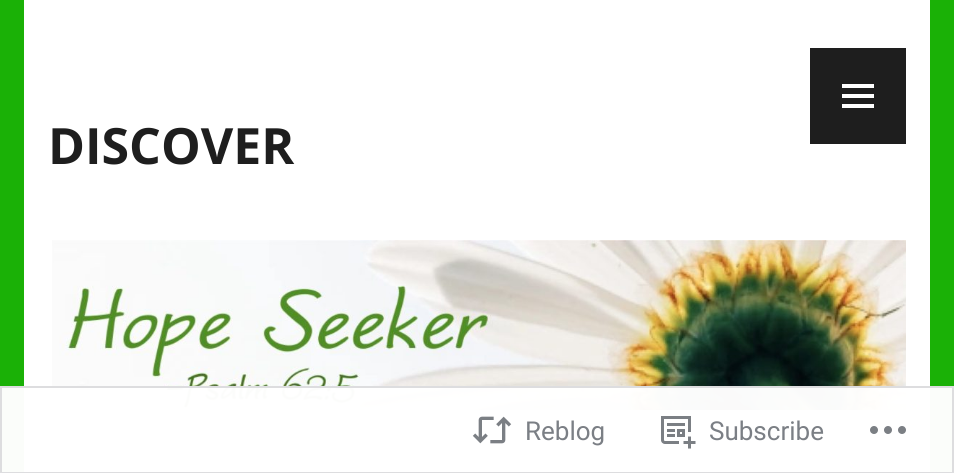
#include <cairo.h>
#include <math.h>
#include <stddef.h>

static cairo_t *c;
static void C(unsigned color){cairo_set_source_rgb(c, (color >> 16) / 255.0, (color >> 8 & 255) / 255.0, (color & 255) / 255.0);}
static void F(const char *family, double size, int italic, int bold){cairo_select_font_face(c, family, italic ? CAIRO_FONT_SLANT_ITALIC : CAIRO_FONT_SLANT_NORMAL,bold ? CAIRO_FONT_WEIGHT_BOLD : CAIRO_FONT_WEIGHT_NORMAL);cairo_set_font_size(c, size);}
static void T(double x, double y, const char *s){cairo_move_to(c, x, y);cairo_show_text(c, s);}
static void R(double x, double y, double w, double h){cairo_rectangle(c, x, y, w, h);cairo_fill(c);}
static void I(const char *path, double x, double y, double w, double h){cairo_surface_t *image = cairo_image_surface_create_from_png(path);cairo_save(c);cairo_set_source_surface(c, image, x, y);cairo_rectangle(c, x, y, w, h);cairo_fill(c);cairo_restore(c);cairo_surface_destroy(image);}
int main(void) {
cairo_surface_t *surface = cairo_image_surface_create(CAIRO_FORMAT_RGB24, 954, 473);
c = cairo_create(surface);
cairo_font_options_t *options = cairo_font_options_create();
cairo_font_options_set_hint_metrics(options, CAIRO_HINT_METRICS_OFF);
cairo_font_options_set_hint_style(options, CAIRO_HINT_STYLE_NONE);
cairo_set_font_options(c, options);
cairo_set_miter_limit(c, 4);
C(0x1ab106);
cairo_paint(c);
C(0xffffff);
R(24,0,906,473);
F("Open Sans",50,0,1);
C(0x1e1e1e);
T(48,164,"DISCOVER");
R(810,48,96,96);
I("1.png",842,84,32,24);
I("2.png",52,240,854,170);
cairo_set_source_rgba(c,1,1,1,0.98);
R(0,386,954,87);
cairo_rectangle(c,1,387,952,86);
cairo_set_source_rgba(c,0.863,0.863,0.871,0.98);
cairo_stroke(c);
I("3.png",472,416,40,28);
F("Roboto",26,0,0);
C(0x7b7f85);
T(525,440,"Reblog");
I("4.png",661,416,35,33);
T(709,440,"Subscribe");
I("5.png",870,426,36,8);
cairo_surface_write_to_png(surface, "o.png");
cairo_font_options_destroy(options);
cairo_destroy(c);
cairo_surface_destroy(surface);
return 0;
}
